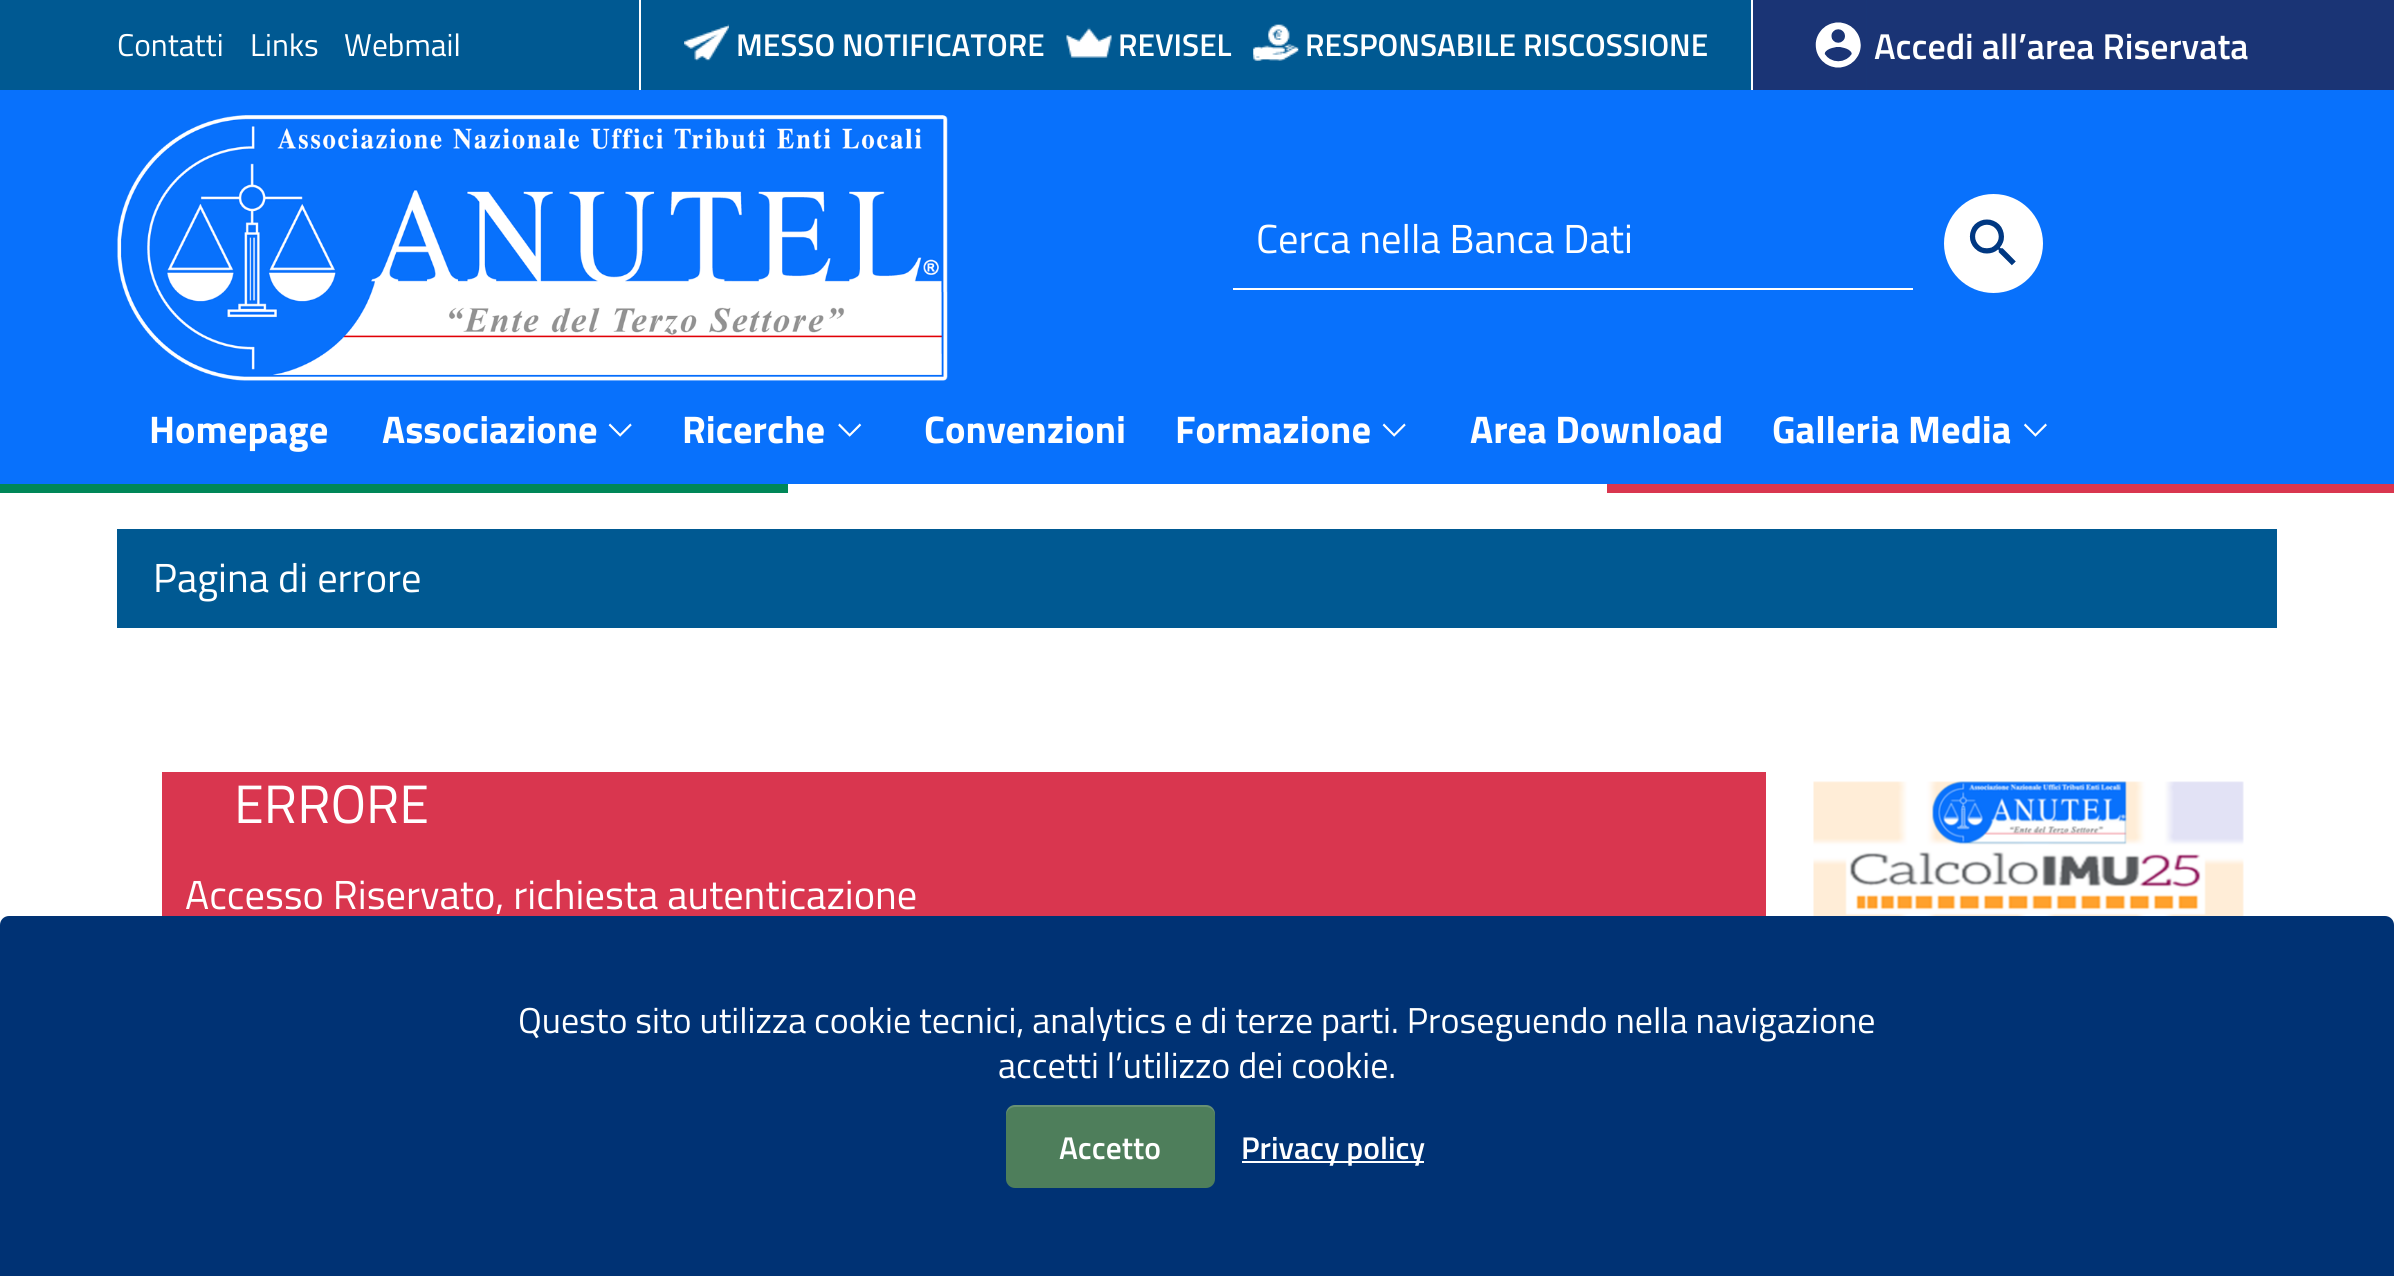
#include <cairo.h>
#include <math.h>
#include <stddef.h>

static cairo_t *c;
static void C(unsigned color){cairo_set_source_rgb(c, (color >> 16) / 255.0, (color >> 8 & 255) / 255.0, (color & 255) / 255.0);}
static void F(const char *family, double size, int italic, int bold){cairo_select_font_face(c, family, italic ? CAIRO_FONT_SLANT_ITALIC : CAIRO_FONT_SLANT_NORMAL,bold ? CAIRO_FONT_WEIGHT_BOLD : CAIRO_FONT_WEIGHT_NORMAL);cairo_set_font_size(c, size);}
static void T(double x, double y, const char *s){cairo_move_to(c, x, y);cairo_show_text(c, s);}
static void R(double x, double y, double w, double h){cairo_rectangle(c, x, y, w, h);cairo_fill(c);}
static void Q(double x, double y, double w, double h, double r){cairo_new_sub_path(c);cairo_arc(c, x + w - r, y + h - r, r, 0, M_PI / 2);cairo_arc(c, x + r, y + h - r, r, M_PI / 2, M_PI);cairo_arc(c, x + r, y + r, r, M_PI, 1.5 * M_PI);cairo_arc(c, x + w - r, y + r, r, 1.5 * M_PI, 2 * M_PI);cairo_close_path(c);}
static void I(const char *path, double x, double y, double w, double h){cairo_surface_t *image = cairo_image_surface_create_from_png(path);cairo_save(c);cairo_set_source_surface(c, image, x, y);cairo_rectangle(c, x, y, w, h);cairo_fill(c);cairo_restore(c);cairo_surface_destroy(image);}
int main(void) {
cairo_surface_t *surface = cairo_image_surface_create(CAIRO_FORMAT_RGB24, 2394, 1276);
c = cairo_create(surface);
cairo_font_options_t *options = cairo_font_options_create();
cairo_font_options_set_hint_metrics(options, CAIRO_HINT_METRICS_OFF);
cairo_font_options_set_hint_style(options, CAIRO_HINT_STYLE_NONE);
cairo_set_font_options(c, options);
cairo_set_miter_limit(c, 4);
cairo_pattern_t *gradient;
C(0xffffff);
cairo_paint(c);
C(0x0871fc);
R(0,90,2394,394);
gradient = cairo_pattern_create_linear(0,45,2394,45);
cairo_pattern_add_color_stop_rgba(gradient,0,0,0.349,0.573,1);
cairo_pattern_add_color_stop_rgba(gradient,.77,0,0.349,0.573,1);
cairo_pattern_add_color_stop_rgba(gradient,.78,0.102,0.204,0.459,1);
cairo_set_source(c,gradient);
cairo_pattern_destroy(gradient);
R(0,0,2394,90);
C(0xffffff);
R(639,0,2,90);
F("Titillium Web",31.5,0,0);
T(117,56,"Contatti");
T(250,56,"Links");
T(344,56,"Webmail");
R(1751,0,2,90);
I("1.png",684,24,45,37);
F("Titillium Web SemiBold",31.5,0,0);
T(736,56,"MESSO NOTIFICATORE");
I("2.png",1066,27,46,31);
T(1118,56,"REVISEL");
I("3.png",1253,24,46,37);
T(1305,56,"RESPONSABILE RISCOSSIONE");
C(0x1a3475);
R(1753,0,113,90);
I("4.png",1815,22,46,46);
F("Titillium Web SemiBold",36,0,0);
C(0xffffff);
T(1874,59,"Accedi all’area Riservata");
I("5.png",117,115,831,266);
R(1233,288,680,2);
F("Titillium Web",40.5,0,0);
T(1256,253,"Cerca nella Banca Dati");
cairo_new_path(c);
cairo_arc(c,1993.5,243.5,49.5,0,2 * M_PI);
cairo_fill(c);
I("6.png",1969,219,47,47);
F("Titillium Web",38.5,0,1);
T(149,443,"Homepage");
T(382,443,"Associazione");
I("7.png",608,423,24,14);
T(682,443,"Ricerche");
I("8.png",838,423,24,14);
T(924,443,"Convenzioni");
T(1175,443,"Formazione");
I("7.png",1382,423,24,14);
T(1470,443,"Area Download");
T(1772,443,"Galleria Media");
I("9.png",2024,423,23,14);
C(0x008758);
R(0,484,788,9);
C(0xd9364f);
R(1607,484,787,9);
C(0x005992);
R(117,529,2160,99);
F("Titillium Web",40.5,0,0);
C(0xffffff);
T(153,592,"Pagina di errore");
C(0xd9364f);
R(162,772,1604,144);
F("Titillium Web",54,0,0);
C(0xffffff);
T(234,823,"ERRORE");
F("Titillium Web",40.5,0,0);
T(185,909,"Accesso Riservato, richiesta autenticazione");
I("10.png",1813,781,431,135);
C(0x003274);
cairo_new_path(c);
cairo_move_to(c,9,916);
cairo_line_to(c,2385,916);
cairo_curve_to(c,2390,916,2394,920,2394,925);
cairo_line_to(c,2394,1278);
cairo_line_to(c,0,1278);
cairo_line_to(c,0,925);
cairo_curve_to(c,0,920,4,916,9,916);
cairo_close_path(c);
cairo_fill(c);
F("Titillium Web",36,0,0);
C(0xffffff);
T(518,1033,"Questo sito utilizza cookie tecnici, analytics e di terze parti. Proseguendo nella navigazione");
T(998,1078,"accetti l’utilizzo dei cookie.");
C(0x4e7e5b);
Q(1006,1105,209,83,9);
cairo_fill(c);
cairo_set_source_rgba(c,1,1,1,0.15);
cairo_new_path(c);
cairo_move_to(c,1015,1107);
cairo_line_to(c,1206,1107);
cairo_curve_to(c,1211,1107,1215,1111,1215,1116);
cairo_line_to(c,1215,1114);
cairo_curve_to(c,1215,1109,1211,1105,1206,1105);
cairo_line_to(c,1015,1105);
cairo_curve_to(c,1010,1105,1006,1109,1006,1114);
cairo_line_to(c,1006,1116);
cairo_curve_to(c,1006,1111,1010,1107,1015,1107);
cairo_close_path(c);
cairo_fill(c);
F("Titillium Web SemiBold",31.5,0,0);
C(0xffffff);
T(1059,1159,"Accetto");
R(1242,1161,182,2);
T(1241,1159,"Privacy policy");
cairo_surface_write_to_png(surface, "o.png");
cairo_font_options_destroy(options);
cairo_destroy(c);
cairo_surface_destroy(surface);
return 0;
}
